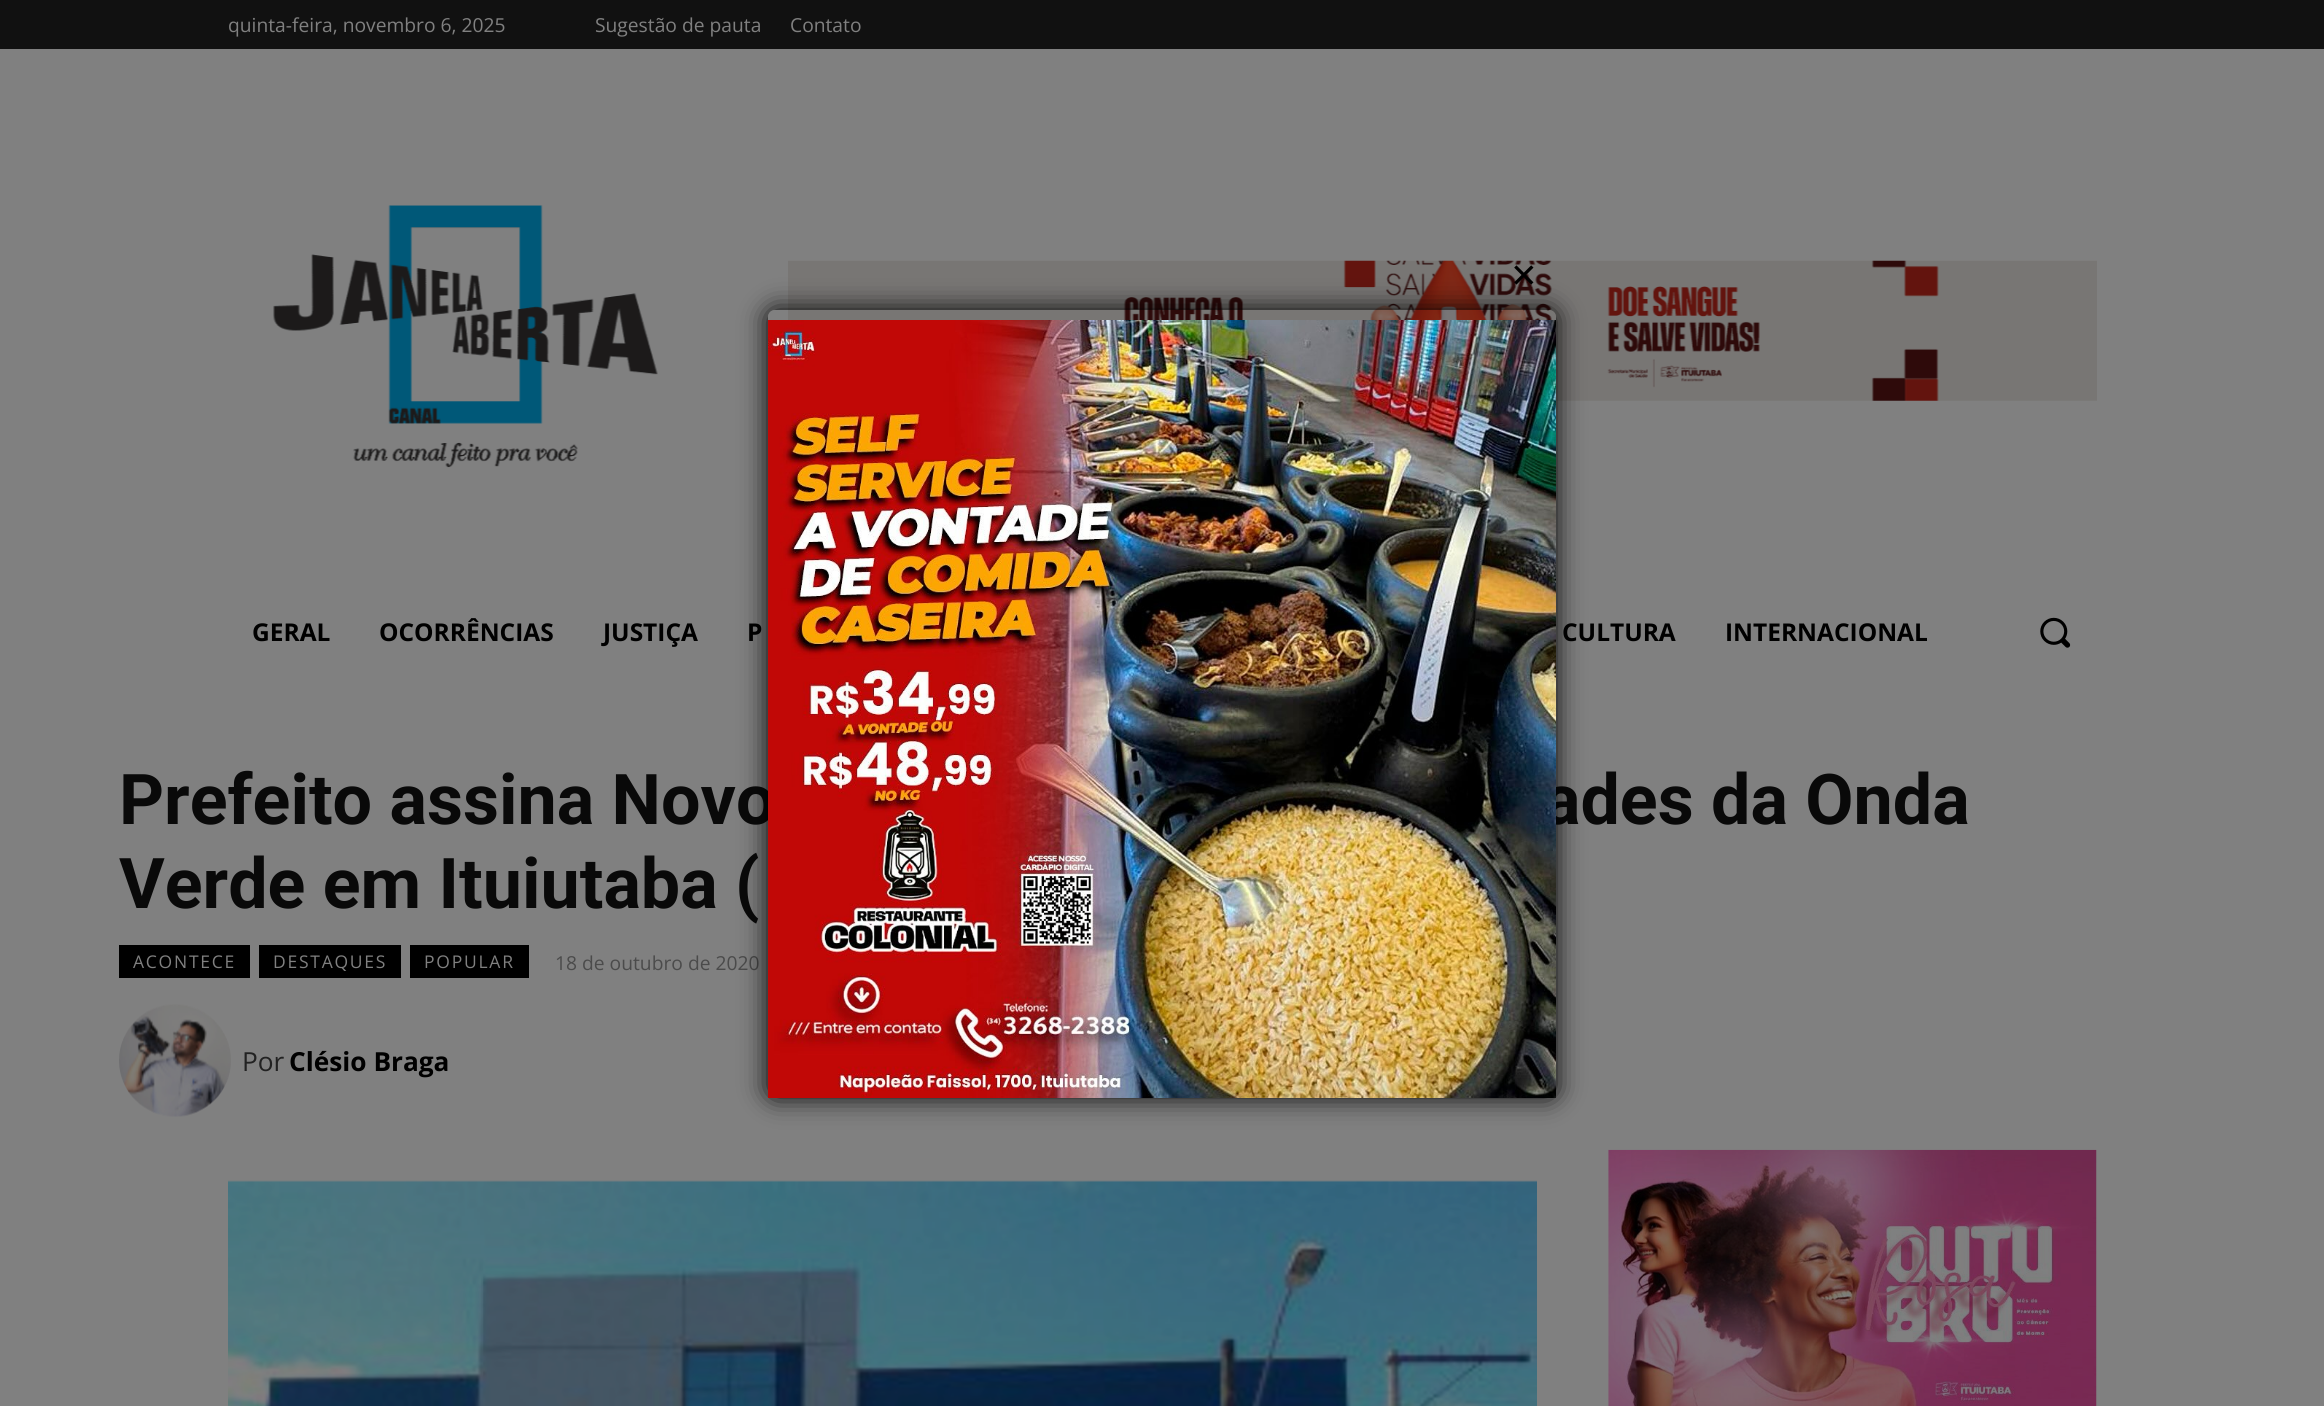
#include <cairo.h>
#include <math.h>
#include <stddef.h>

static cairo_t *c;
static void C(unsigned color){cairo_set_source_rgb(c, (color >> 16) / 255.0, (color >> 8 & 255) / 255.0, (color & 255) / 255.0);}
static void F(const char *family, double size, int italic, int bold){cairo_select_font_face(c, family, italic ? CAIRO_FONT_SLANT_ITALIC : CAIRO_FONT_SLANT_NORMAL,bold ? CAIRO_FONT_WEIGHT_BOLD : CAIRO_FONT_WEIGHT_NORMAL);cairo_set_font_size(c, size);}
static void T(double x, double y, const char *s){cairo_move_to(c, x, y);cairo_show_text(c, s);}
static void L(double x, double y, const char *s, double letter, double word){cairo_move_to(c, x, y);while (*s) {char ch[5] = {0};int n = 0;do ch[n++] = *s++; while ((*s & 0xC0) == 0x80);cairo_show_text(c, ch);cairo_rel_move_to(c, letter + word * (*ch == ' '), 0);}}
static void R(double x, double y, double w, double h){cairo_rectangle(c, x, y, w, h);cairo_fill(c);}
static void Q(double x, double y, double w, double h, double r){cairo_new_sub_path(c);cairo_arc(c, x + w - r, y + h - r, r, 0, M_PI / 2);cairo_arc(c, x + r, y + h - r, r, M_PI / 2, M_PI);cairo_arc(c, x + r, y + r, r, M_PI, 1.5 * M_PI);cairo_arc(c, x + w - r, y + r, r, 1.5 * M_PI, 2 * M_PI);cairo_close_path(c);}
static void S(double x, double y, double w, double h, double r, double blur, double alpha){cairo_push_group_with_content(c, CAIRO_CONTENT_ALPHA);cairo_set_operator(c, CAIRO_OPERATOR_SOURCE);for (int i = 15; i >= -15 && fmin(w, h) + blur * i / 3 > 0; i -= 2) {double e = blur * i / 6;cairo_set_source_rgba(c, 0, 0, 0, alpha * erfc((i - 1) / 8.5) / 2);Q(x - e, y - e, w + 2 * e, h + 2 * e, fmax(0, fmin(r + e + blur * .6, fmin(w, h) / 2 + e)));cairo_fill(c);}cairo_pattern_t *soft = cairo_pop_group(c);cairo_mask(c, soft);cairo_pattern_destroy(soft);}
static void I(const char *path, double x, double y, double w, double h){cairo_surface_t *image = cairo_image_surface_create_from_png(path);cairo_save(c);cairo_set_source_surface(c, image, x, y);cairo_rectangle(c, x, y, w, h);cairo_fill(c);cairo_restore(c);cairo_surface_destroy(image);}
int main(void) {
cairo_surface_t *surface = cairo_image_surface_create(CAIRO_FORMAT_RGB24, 2324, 1406);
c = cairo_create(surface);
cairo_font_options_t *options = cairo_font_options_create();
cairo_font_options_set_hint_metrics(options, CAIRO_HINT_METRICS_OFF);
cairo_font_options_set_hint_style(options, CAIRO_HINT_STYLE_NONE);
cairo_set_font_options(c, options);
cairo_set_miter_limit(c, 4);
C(0x808080);
cairo_paint(c);
C(0x111111);
R(0,0,2324,49);
F("Open Sans",19.25,0,0);
C(0x808080);
T(228,32,"quinta-feira, novembro 6, 2025");
T(595,32,"Sugestão de pauta");
T(790,32,"Contato");
I("1.png",273,205,385,263);
I("2.png",788,260,1309,141);
F("Open Sans",24.5,0,1);
C(0x000000);
T(252,641,"GERAL");
T(379,641,"OCORRÊNCIAS");
T(603,641,"JUSTIÇA");
T(747,641,"P");
T(1562,641,"CULTURA");
T(1725,641,"INTERNACIONAL");
I("3.png",2040,617,31,31);
F("Roboto",70,0,1);
C(0x090909);
T(119,824,"Prefeito assina Novo");
T(1543,824,"ades da Onda");
T(119,908,"Verde em Ituiutaba (");
C(0x000000);
R(119,945,131,33);
F("Open Sans",17.5,0,0);
C(0x808080);
L(133,968,"ACONTECE",1.75,0);
C(0x000000);
R(259,945,142,33);
C(0x808080);
L(273,968,"DESTAQUES",1.75,0);
C(0x000000);
R(410,945,119,33);
C(0x808080);
L(424,968,"POPULAR",1.75,0);
F("Open Sans",19.25,0,0);
C(0x4b4b4b);
T(555,970,"18 de outubro de 2020");
I("4.png",119,1004,112,113);
F("Open Sans",26.25,0,0);
C(0x222222);
T(242,1071,"Por");
F("Open Sans",26.25,0,1);
C(0x000000);
T(289,1071,"Clésio Braga");
I("5.png",228,1180,1309,226);
I("6.png",1608,1149,489,257);
cairo_save(c);
cairo_set_fill_rule(c,CAIRO_FILL_RULE_EVEN_ODD);
cairo_new_path(c);
cairo_move_to(c,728,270);
cairo_line_to(c,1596,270);
cairo_line_to(c,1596,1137);
cairo_line_to(c,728,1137);
cairo_close_path(c);
cairo_move_to(c,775,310);
cairo_line_to(c,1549,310);
cairo_curve_to(c,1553,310,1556,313,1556,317);
cairo_line_to(c,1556,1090);
cairo_curve_to(c,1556,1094,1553,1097,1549,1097);
cairo_line_to(c,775,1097);
cairo_curve_to(c,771,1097,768,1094,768,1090);
cairo_line_to(c,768,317);
cairo_curve_to(c,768,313,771,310,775,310);
cairo_close_path(c);
cairo_clip(c);
C(0x000000);
S(768,310,788,787,7,13,1);
cairo_restore(c);
F("DejaVu Sans",33,0,0);
T(1510,287,"✕");
I("7.png",768,320,788,778);
cairo_surface_write_to_png(surface, "o.png");
cairo_font_options_destroy(options);
cairo_destroy(c);
cairo_surface_destroy(surface);
return 0;
}
